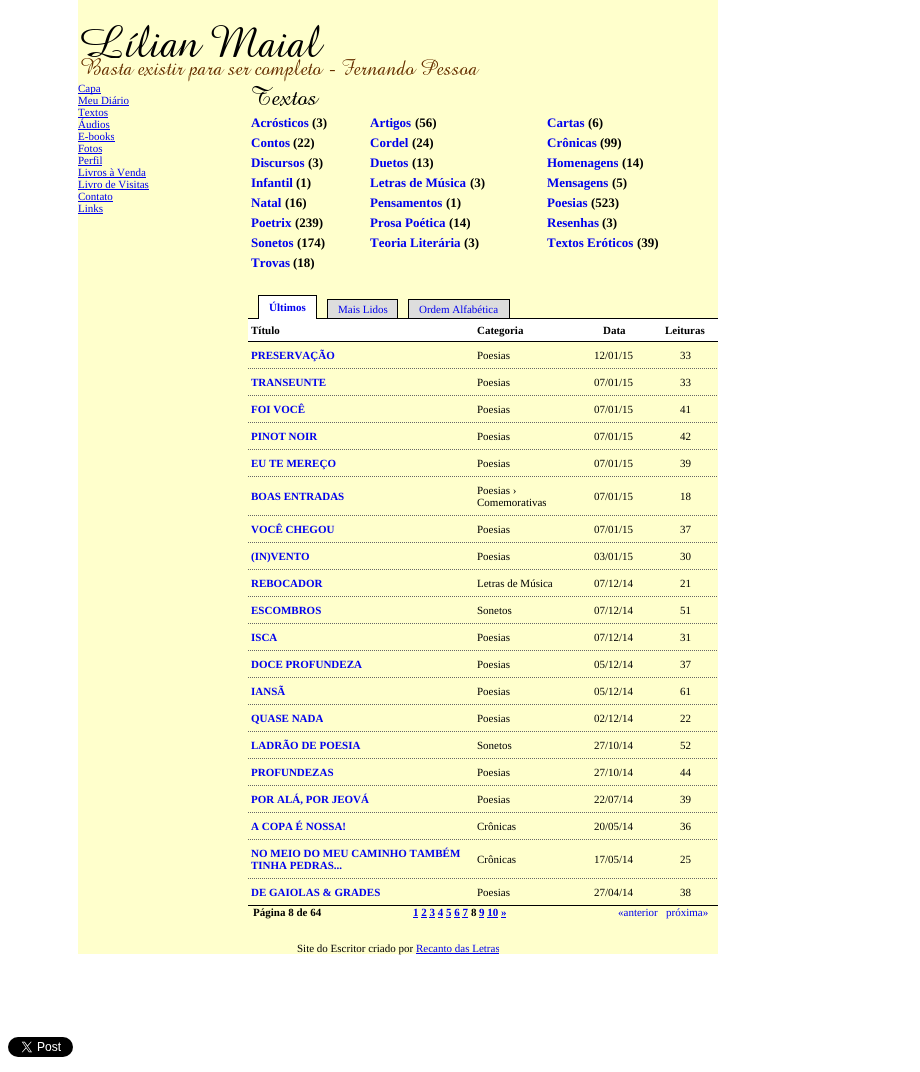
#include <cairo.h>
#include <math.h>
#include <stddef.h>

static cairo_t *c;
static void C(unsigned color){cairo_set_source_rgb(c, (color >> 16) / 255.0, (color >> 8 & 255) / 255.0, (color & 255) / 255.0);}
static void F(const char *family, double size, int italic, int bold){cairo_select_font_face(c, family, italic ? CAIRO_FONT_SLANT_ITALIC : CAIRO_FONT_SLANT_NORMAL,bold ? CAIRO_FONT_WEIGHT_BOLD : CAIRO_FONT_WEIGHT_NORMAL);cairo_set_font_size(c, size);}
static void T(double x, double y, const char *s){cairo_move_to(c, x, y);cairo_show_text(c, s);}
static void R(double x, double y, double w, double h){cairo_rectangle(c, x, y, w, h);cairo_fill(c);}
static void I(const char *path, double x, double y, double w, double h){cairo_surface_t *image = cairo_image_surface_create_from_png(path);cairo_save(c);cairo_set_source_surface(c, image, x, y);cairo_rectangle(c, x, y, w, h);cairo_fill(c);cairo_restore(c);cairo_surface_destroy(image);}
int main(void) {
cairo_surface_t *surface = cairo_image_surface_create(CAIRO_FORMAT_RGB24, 920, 1072);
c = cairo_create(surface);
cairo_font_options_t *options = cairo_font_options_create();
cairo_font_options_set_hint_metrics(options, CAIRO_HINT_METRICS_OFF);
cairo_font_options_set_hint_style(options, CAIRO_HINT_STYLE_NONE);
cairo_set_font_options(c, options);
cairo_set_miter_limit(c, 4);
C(0xffffff);
cairo_paint(c);
C(0xffffcc);
R(78,0,640,954);
I("1.png",81,24,244,34);
I("2.png",81,58,399,24);
C(0x0000ee);
R(78,93,23,1);
F("Liberation Serif",11,0,0);
T(78,92,"Capa");
T(78,104,"Meu Diário");
R(78,105,51,1);
T(78,116,"Textos");
R(78,117,30,1);
T(78,128,"Áudios");
R(78,129,32,1);
T(78,140,"E-books");
R(78,141,37,1);
T(78,152,"Fotos");
R(78,153,24,1);
T(78,164,"Perfil");
R(78,165,24,1);
T(78,176,"Livros à Venda");
R(78,177,68,1);
T(78,188,"Livro de Visitas");
R(78,189,71,1);
T(78,200,"Contato");
R(78,201,35,1);
T(78,212,"Links");
R(78,213,25,1);
I("3.png",252,85,68,21);
F("Liberation Serif",13,0,1);
T(251,127,"Acrósticos");
C(0x000000);
T(312,127,"(3)");
C(0x0000ee);
T(370,127,"Artigos");
C(0x000000);
T(415,127,"(56)");
C(0x0000ee);
T(547,127,"Cartas");
C(0x000000);
T(588,127,"(6)");
C(0x0000ee);
T(251,147,"Contos");
C(0x000000);
T(293,147,"(22)");
C(0x0000ee);
T(370,147,"Cordel");
C(0x000000);
T(412,147,"(24)");
C(0x0000ee);
T(547,147,"Crônicas");
C(0x000000);
T(600,147,"(99)");
C(0x0000ee);
T(251,167,"Discursos");
C(0x000000);
T(308,167,"(3)");
C(0x0000ee);
T(370,167,"Duetos");
C(0x000000);
T(412,167,"(13)");
C(0x0000ee);
T(547,167,"Homenagens");
C(0x000000);
T(622,167,"(14)");
C(0x0000ee);
T(251,187,"Infantil");
C(0x000000);
T(296,187,"(1)");
C(0x0000ee);
T(370,187,"Letras de Música");
C(0x000000);
T(470,187,"(3)");
C(0x0000ee);
T(547,187,"Mensagens");
C(0x000000);
T(612,187,"(5)");
C(0x0000ee);
T(251,207,"Natal");
C(0x000000);
T(285,207,"(16)");
C(0x0000ee);
T(370,207,"Pensamentos");
C(0x000000);
T(446,207,"(1)");
C(0x0000ee);
T(547,207,"Poesias");
C(0x000000);
T(591,207,"(523)");
C(0x0000ee);
T(251,227,"Poetrix");
C(0x000000);
T(295,227,"(239)");
C(0x0000ee);
T(370,227,"Prosa Poética");
C(0x000000);
T(449,227,"(14)");
C(0x0000ee);
T(547,227,"Resenhas");
C(0x000000);
T(602,227,"(3)");
C(0x0000ee);
T(251,247,"Sonetos");
C(0x000000);
T(297,247,"(174)");
C(0x0000ee);
T(370,247,"Teoria Literária");
C(0x000000);
T(464,247,"(3)");
C(0x0000ee);
T(547,247,"Textos Eróticos");
C(0x000000);
T(637,247,"(39)");
C(0x0000ee);
T(251,267,"Trovas");
C(0x000000);
T(293,267,"(18)");
R(248,318,470,1);
C(0xffffff);
R(259,296,57,23);
C(0x000000);
R(258,295,59,1);
R(316,295,1,24);
R(258,295,1,24);
F("Liberation Serif",11,0,1);
C(0x0000ee);
T(269,311,"Últimos");
C(0xdddddd);
cairo_rectangle(c,327.5,299.5,70,19);
cairo_fill_preserve(c);
C(0x000000);
cairo_set_line_width(c,1);
cairo_stroke(c);
F("Liberation Serif",11,0,0);
C(0x0000ee);
T(338,313,"Mais Lidos");
C(0xdddddd);
cairo_rectangle(c,408.5,299.5,101,19);
cairo_fill_preserve(c);
C(0x000000);
cairo_stroke(c);
C(0x0000ee);
T(419,313,"Ordem Alfabética");
C(0xffffff);
R(248,319,470,22);
C(0x000000);
R(248,341,470,1);
F("Liberation Serif",11,0,1);
T(251,334,"Título");
T(477,334,"Categoria");
T(603,334,"Data");
T(665,334,"Leituras");
cairo_new_path(c);
cairo_move_to(c,248,368.5);
cairo_line_to(c,474,368.5);
C(0x666666);
cairo_set_dash(c,(double[]){1,1},2,0);
cairo_stroke(c);
C(0x0000ee);
T(251,359,"PRESERVAÇÃO");
cairo_new_path(c);
cairo_move_to(c,474,368.5);
cairo_line_to(c,576,368.5);
C(0x666666);
cairo_stroke(c);
F("Liberation Serif",11,0,0);
C(0x000000);
T(477,359,"Poesias");
cairo_new_path(c);
cairo_move_to(c,576,368.5);
cairo_line_to(c,652,368.5);
C(0x666666);
cairo_stroke(c);
C(0x000000);
T(594,359,"12/01/15");
cairo_new_path(c);
cairo_move_to(c,652,368.5);
cairo_line_to(c,718,368.5);
C(0x666666);
cairo_stroke(c);
C(0x000000);
T(680,359,"33");
cairo_new_path(c);
cairo_move_to(c,248,395.5);
cairo_line_to(c,474,395.5);
C(0x666666);
cairo_stroke(c);
F("Liberation Serif",11,0,1);
C(0x0000ee);
T(251,386,"TRANSEUNTE");
cairo_new_path(c);
cairo_move_to(c,474,395.5);
cairo_line_to(c,576,395.5);
C(0x666666);
cairo_stroke(c);
F("Liberation Serif",11,0,0);
C(0x000000);
T(477,386,"Poesias");
cairo_new_path(c);
cairo_move_to(c,576,395.5);
cairo_line_to(c,652,395.5);
C(0x666666);
cairo_stroke(c);
C(0x000000);
T(594,386,"07/01/15");
cairo_new_path(c);
cairo_move_to(c,652,395.5);
cairo_line_to(c,718,395.5);
C(0x666666);
cairo_stroke(c);
C(0x000000);
T(680,386,"33");
cairo_new_path(c);
cairo_move_to(c,248,422.5);
cairo_line_to(c,474,422.5);
C(0x666666);
cairo_stroke(c);
F("Liberation Serif",11,0,1);
C(0x0000ee);
T(251,413,"FOI VOCÊ");
cairo_new_path(c);
cairo_move_to(c,474,422.5);
cairo_line_to(c,576,422.5);
C(0x666666);
cairo_stroke(c);
F("Liberation Serif",11,0,0);
C(0x000000);
T(477,413,"Poesias");
cairo_new_path(c);
cairo_move_to(c,576,422.5);
cairo_line_to(c,652,422.5);
C(0x666666);
cairo_stroke(c);
C(0x000000);
T(594,413,"07/01/15");
cairo_new_path(c);
cairo_move_to(c,652,422.5);
cairo_line_to(c,718,422.5);
C(0x666666);
cairo_stroke(c);
C(0x000000);
T(680,413,"41");
cairo_new_path(c);
cairo_move_to(c,248,449.5);
cairo_line_to(c,474,449.5);
C(0x666666);
cairo_stroke(c);
F("Liberation Serif",11,0,1);
C(0x0000ee);
T(251,440,"PINOT NOIR");
cairo_new_path(c);
cairo_move_to(c,474,449.5);
cairo_line_to(c,576,449.5);
C(0x666666);
cairo_stroke(c);
F("Liberation Serif",11,0,0);
C(0x000000);
T(477,440,"Poesias");
cairo_new_path(c);
cairo_move_to(c,576,449.5);
cairo_line_to(c,652,449.5);
C(0x666666);
cairo_stroke(c);
C(0x000000);
T(594,440,"07/01/15");
cairo_new_path(c);
cairo_move_to(c,652,449.5);
cairo_line_to(c,718,449.5);
C(0x666666);
cairo_stroke(c);
C(0x000000);
T(680,440,"42");
cairo_new_path(c);
cairo_move_to(c,248,476.5);
cairo_line_to(c,474,476.5);
C(0x666666);
cairo_stroke(c);
F("Liberation Serif",11,0,1);
C(0x0000ee);
T(251,467,"EU TE MEREÇO");
cairo_new_path(c);
cairo_move_to(c,474,476.5);
cairo_line_to(c,576,476.5);
C(0x666666);
cairo_stroke(c);
F("Liberation Serif",11,0,0);
C(0x000000);
T(477,467,"Poesias");
cairo_new_path(c);
cairo_move_to(c,576,476.5);
cairo_line_to(c,652,476.5);
C(0x666666);
cairo_stroke(c);
C(0x000000);
T(594,467,"07/01/15");
cairo_new_path(c);
cairo_move_to(c,652,476.5);
cairo_line_to(c,718,476.5);
C(0x666666);
cairo_stroke(c);
C(0x000000);
T(680,467,"39");
cairo_new_path(c);
cairo_move_to(c,248,515.5);
cairo_line_to(c,474,515.5);
C(0x666666);
cairo_stroke(c);
F("Liberation Serif",11,0,1);
C(0x0000ee);
T(251,500,"BOAS ENTRADAS");
cairo_new_path(c);
cairo_move_to(c,474,515.5);
cairo_line_to(c,576,515.5);
C(0x666666);
cairo_stroke(c);
F("Liberation Serif",11,0,0);
C(0x000000);
T(477,494,"Poesias ›");
T(477,506,"Comemorativas");
cairo_new_path(c);
cairo_move_to(c,576,515.5);
cairo_line_to(c,652,515.5);
C(0x666666);
cairo_stroke(c);
C(0x000000);
T(594,500,"07/01/15");
cairo_new_path(c);
cairo_move_to(c,652,515.5);
cairo_line_to(c,718,515.5);
C(0x666666);
cairo_stroke(c);
C(0x000000);
T(680,500,"18");
cairo_new_path(c);
cairo_move_to(c,248,542.5);
cairo_line_to(c,474,542.5);
C(0x666666);
cairo_stroke(c);
F("Liberation Serif",11,0,1);
C(0x0000ee);
T(251,533,"VOCÊ CHEGOU");
cairo_new_path(c);
cairo_move_to(c,474,542.5);
cairo_line_to(c,576,542.5);
C(0x666666);
cairo_stroke(c);
F("Liberation Serif",11,0,0);
C(0x000000);
T(477,533,"Poesias");
cairo_new_path(c);
cairo_move_to(c,576,542.5);
cairo_line_to(c,652,542.5);
C(0x666666);
cairo_stroke(c);
C(0x000000);
T(594,533,"07/01/15");
cairo_new_path(c);
cairo_move_to(c,652,542.5);
cairo_line_to(c,718,542.5);
C(0x666666);
cairo_stroke(c);
C(0x000000);
T(680,533,"37");
cairo_new_path(c);
cairo_move_to(c,248,569.5);
cairo_line_to(c,474,569.5);
C(0x666666);
cairo_stroke(c);
F("Liberation Serif",11,0,1);
C(0x0000ee);
T(251,560,"(IN)VENTO");
cairo_new_path(c);
cairo_move_to(c,474,569.5);
cairo_line_to(c,576,569.5);
C(0x666666);
cairo_stroke(c);
F("Liberation Serif",11,0,0);
C(0x000000);
T(477,560,"Poesias");
cairo_new_path(c);
cairo_move_to(c,576,569.5);
cairo_line_to(c,652,569.5);
C(0x666666);
cairo_stroke(c);
C(0x000000);
T(594,560,"03/01/15");
cairo_new_path(c);
cairo_move_to(c,652,569.5);
cairo_line_to(c,718,569.5);
C(0x666666);
cairo_stroke(c);
C(0x000000);
T(680,560,"30");
cairo_new_path(c);
cairo_move_to(c,248,596.5);
cairo_line_to(c,474,596.5);
C(0x666666);
cairo_stroke(c);
F("Liberation Serif",11,0,1);
C(0x0000ee);
T(251,587,"REBOCADOR");
cairo_new_path(c);
cairo_move_to(c,474,596.5);
cairo_line_to(c,576,596.5);
C(0x666666);
cairo_stroke(c);
F("Liberation Serif",11,0,0);
C(0x000000);
T(477,587,"Letras de Música");
cairo_new_path(c);
cairo_move_to(c,576,596.5);
cairo_line_to(c,652,596.5);
C(0x666666);
cairo_stroke(c);
C(0x000000);
T(594,587,"07/12/14");
cairo_new_path(c);
cairo_move_to(c,652,596.5);
cairo_line_to(c,718,596.5);
C(0x666666);
cairo_stroke(c);
C(0x000000);
T(680,587,"21");
cairo_new_path(c);
cairo_move_to(c,248,623.5);
cairo_line_to(c,474,623.5);
C(0x666666);
cairo_stroke(c);
F("Liberation Serif",11,0,1);
C(0x0000ee);
T(251,614,"ESCOMBROS");
cairo_new_path(c);
cairo_move_to(c,474,623.5);
cairo_line_to(c,576,623.5);
C(0x666666);
cairo_stroke(c);
F("Liberation Serif",11,0,0);
C(0x000000);
T(477,614,"Sonetos");
cairo_new_path(c);
cairo_move_to(c,576,623.5);
cairo_line_to(c,652,623.5);
C(0x666666);
cairo_stroke(c);
C(0x000000);
T(594,614,"07/12/14");
cairo_new_path(c);
cairo_move_to(c,652,623.5);
cairo_line_to(c,718,623.5);
C(0x666666);
cairo_stroke(c);
C(0x000000);
T(680,614,"51");
cairo_new_path(c);
cairo_move_to(c,248,650.5);
cairo_line_to(c,474,650.5);
C(0x666666);
cairo_stroke(c);
F("Liberation Serif",11,0,1);
C(0x0000ee);
T(251,641,"ISCA");
cairo_new_path(c);
cairo_move_to(c,474,650.5);
cairo_line_to(c,576,650.5);
C(0x666666);
cairo_stroke(c);
F("Liberation Serif",11,0,0);
C(0x000000);
T(477,641,"Poesias");
cairo_new_path(c);
cairo_move_to(c,576,650.5);
cairo_line_to(c,652,650.5);
C(0x666666);
cairo_stroke(c);
C(0x000000);
T(594,641,"07/12/14");
cairo_new_path(c);
cairo_move_to(c,652,650.5);
cairo_line_to(c,718,650.5);
C(0x666666);
cairo_stroke(c);
C(0x000000);
T(680,641,"31");
cairo_new_path(c);
cairo_move_to(c,248,677.5);
cairo_line_to(c,474,677.5);
C(0x666666);
cairo_stroke(c);
F("Liberation Serif",11,0,1);
C(0x0000ee);
T(251,668,"DOCE PROFUNDEZA");
cairo_new_path(c);
cairo_move_to(c,474,677.5);
cairo_line_to(c,576,677.5);
C(0x666666);
cairo_stroke(c);
F("Liberation Serif",11,0,0);
C(0x000000);
T(477,668,"Poesias");
cairo_new_path(c);
cairo_move_to(c,576,677.5);
cairo_line_to(c,652,677.5);
C(0x666666);
cairo_stroke(c);
C(0x000000);
T(594,668,"05/12/14");
cairo_new_path(c);
cairo_move_to(c,652,677.5);
cairo_line_to(c,718,677.5);
C(0x666666);
cairo_stroke(c);
C(0x000000);
T(680,668,"37");
cairo_new_path(c);
cairo_move_to(c,248,704.5);
cairo_line_to(c,474,704.5);
C(0x666666);
cairo_stroke(c);
F("Liberation Serif",11,0,1);
C(0x0000ee);
T(251,695,"IANSÃ");
cairo_new_path(c);
cairo_move_to(c,474,704.5);
cairo_line_to(c,576,704.5);
C(0x666666);
cairo_stroke(c);
F("Liberation Serif",11,0,0);
C(0x000000);
T(477,695,"Poesias");
cairo_new_path(c);
cairo_move_to(c,576,704.5);
cairo_line_to(c,652,704.5);
C(0x666666);
cairo_stroke(c);
C(0x000000);
T(594,695,"05/12/14");
cairo_new_path(c);
cairo_move_to(c,652,704.5);
cairo_line_to(c,718,704.5);
C(0x666666);
cairo_stroke(c);
C(0x000000);
T(680,695,"61");
cairo_new_path(c);
cairo_move_to(c,248,731.5);
cairo_line_to(c,474,731.5);
C(0x666666);
cairo_stroke(c);
F("Liberation Serif",11,0,1);
C(0x0000ee);
T(251,722,"QUASE NADA");
cairo_new_path(c);
cairo_move_to(c,474,731.5);
cairo_line_to(c,576,731.5);
C(0x666666);
cairo_stroke(c);
F("Liberation Serif",11,0,0);
C(0x000000);
T(477,722,"Poesias");
cairo_new_path(c);
cairo_move_to(c,576,731.5);
cairo_line_to(c,652,731.5);
C(0x666666);
cairo_stroke(c);
C(0x000000);
T(594,722,"02/12/14");
cairo_new_path(c);
cairo_move_to(c,652,731.5);
cairo_line_to(c,718,731.5);
C(0x666666);
cairo_stroke(c);
C(0x000000);
T(680,722,"22");
cairo_new_path(c);
cairo_move_to(c,248,758.5);
cairo_line_to(c,474,758.5);
C(0x666666);
cairo_stroke(c);
F("Liberation Serif",11,0,1);
C(0x0000ee);
T(251,749,"LADRÃO DE POESIA");
cairo_new_path(c);
cairo_move_to(c,474,758.5);
cairo_line_to(c,576,758.5);
C(0x666666);
cairo_stroke(c);
F("Liberation Serif",11,0,0);
C(0x000000);
T(477,749,"Sonetos");
cairo_new_path(c);
cairo_move_to(c,576,758.5);
cairo_line_to(c,652,758.5);
C(0x666666);
cairo_stroke(c);
C(0x000000);
T(594,749,"27/10/14");
cairo_new_path(c);
cairo_move_to(c,652,758.5);
cairo_line_to(c,718,758.5);
C(0x666666);
cairo_stroke(c);
C(0x000000);
T(680,749,"52");
cairo_new_path(c);
cairo_move_to(c,248,785.5);
cairo_line_to(c,474,785.5);
C(0x666666);
cairo_stroke(c);
F("Liberation Serif",11,0,1);
C(0x0000ee);
T(251,776,"PROFUNDEZAS");
cairo_new_path(c);
cairo_move_to(c,474,785.5);
cairo_line_to(c,576,785.5);
C(0x666666);
cairo_stroke(c);
F("Liberation Serif",11,0,0);
C(0x000000);
T(477,776,"Poesias");
cairo_new_path(c);
cairo_move_to(c,576,785.5);
cairo_line_to(c,652,785.5);
C(0x666666);
cairo_stroke(c);
C(0x000000);
T(594,776,"27/10/14");
cairo_new_path(c);
cairo_move_to(c,652,785.5);
cairo_line_to(c,718,785.5);
C(0x666666);
cairo_stroke(c);
C(0x000000);
T(680,776,"44");
cairo_new_path(c);
cairo_move_to(c,248,812.5);
cairo_line_to(c,474,812.5);
C(0x666666);
cairo_stroke(c);
F("Liberation Serif",11,0,1);
C(0x0000ee);
T(251,803,"POR ALÁ, POR JEOVÁ");
cairo_new_path(c);
cairo_move_to(c,474,812.5);
cairo_line_to(c,576,812.5);
C(0x666666);
cairo_stroke(c);
F("Liberation Serif",11,0,0);
C(0x000000);
T(477,803,"Poesias");
cairo_new_path(c);
cairo_move_to(c,576,812.5);
cairo_line_to(c,652,812.5);
C(0x666666);
cairo_stroke(c);
C(0x000000);
T(594,803,"22/07/14");
cairo_new_path(c);
cairo_move_to(c,652,812.5);
cairo_line_to(c,718,812.5);
C(0x666666);
cairo_stroke(c);
C(0x000000);
T(680,803,"39");
cairo_new_path(c);
cairo_move_to(c,248,839.5);
cairo_line_to(c,474,839.5);
C(0x666666);
cairo_stroke(c);
F("Liberation Serif",11,0,1);
C(0x0000ee);
T(251,830,"A COPA É NOSSA!");
cairo_new_path(c);
cairo_move_to(c,474,839.5);
cairo_line_to(c,576,839.5);
C(0x666666);
cairo_stroke(c);
F("Liberation Serif",11,0,0);
C(0x000000);
T(477,830,"Crônicas");
cairo_new_path(c);
cairo_move_to(c,576,839.5);
cairo_line_to(c,652,839.5);
C(0x666666);
cairo_stroke(c);
C(0x000000);
T(594,830,"20/05/14");
cairo_new_path(c);
cairo_move_to(c,652,839.5);
cairo_line_to(c,718,839.5);
C(0x666666);
cairo_stroke(c);
C(0x000000);
T(680,830,"36");
cairo_new_path(c);
cairo_move_to(c,248,878.5);
cairo_line_to(c,474,878.5);
C(0x666666);
cairo_stroke(c);
F("Liberation Serif",11,0,1);
C(0x0000ee);
T(251,857,"NO MEIO DO MEU CAMINHO TAMBÉM");
T(251,869,"TINHA PEDRAS...");
cairo_new_path(c);
cairo_move_to(c,474,878.5);
cairo_line_to(c,576,878.5);
C(0x666666);
cairo_stroke(c);
F("Liberation Serif",11,0,0);
C(0x000000);
T(477,863,"Crônicas");
cairo_new_path(c);
cairo_move_to(c,576,878.5);
cairo_line_to(c,652,878.5);
C(0x666666);
cairo_stroke(c);
C(0x000000);
T(594,863,"17/05/14");
cairo_new_path(c);
cairo_move_to(c,652,878.5);
cairo_line_to(c,718,878.5);
C(0x666666);
cairo_stroke(c);
C(0x000000);
T(680,863,"25");
F("Liberation Serif",11,0,1);
C(0x0000ee);
T(251,896,"DE GAIOLAS & GRADES");
F("Liberation Serif",11,0,0);
C(0x000000);
T(477,896,"Poesias");
T(594,896,"27/04/14");
T(680,896,"38");
R(248,905,470,1);
F("Liberation Serif",11,0,1);
T(253,916,"Página 8 de 64");
C(0x0000ee);
T(413,916,"1 2 3 4 5 6 7");
R(413,917,5,1);
C(0x000000);
T(471,916,"8");
C(0x0000ee);
T(479,916,"9 10 »");
R(479,917,5,1);
R(421,917,6,1);
R(429,917,6,1);
R(438,917,5,1);
R(446,917,5,1);
R(454,917,6,1);
R(462,917,6,1);
R(487,917,11,1);
R(501,917,5,1);
F("Liberation Serif",11,0,0);
T(618,916,"«anterior");
T(666,916,"próxima»");
C(0x000000);
T(297,952,"Site do Escritor criado por");
C(0x0000ee);
T(416,952,"Recanto das Letras");
R(416,953,83,1);
I("4.png",8,1037,65,20);
cairo_surface_write_to_png(surface, "o.png");
cairo_font_options_destroy(options);
cairo_destroy(c);
cairo_surface_destroy(surface);
return 0;
}
